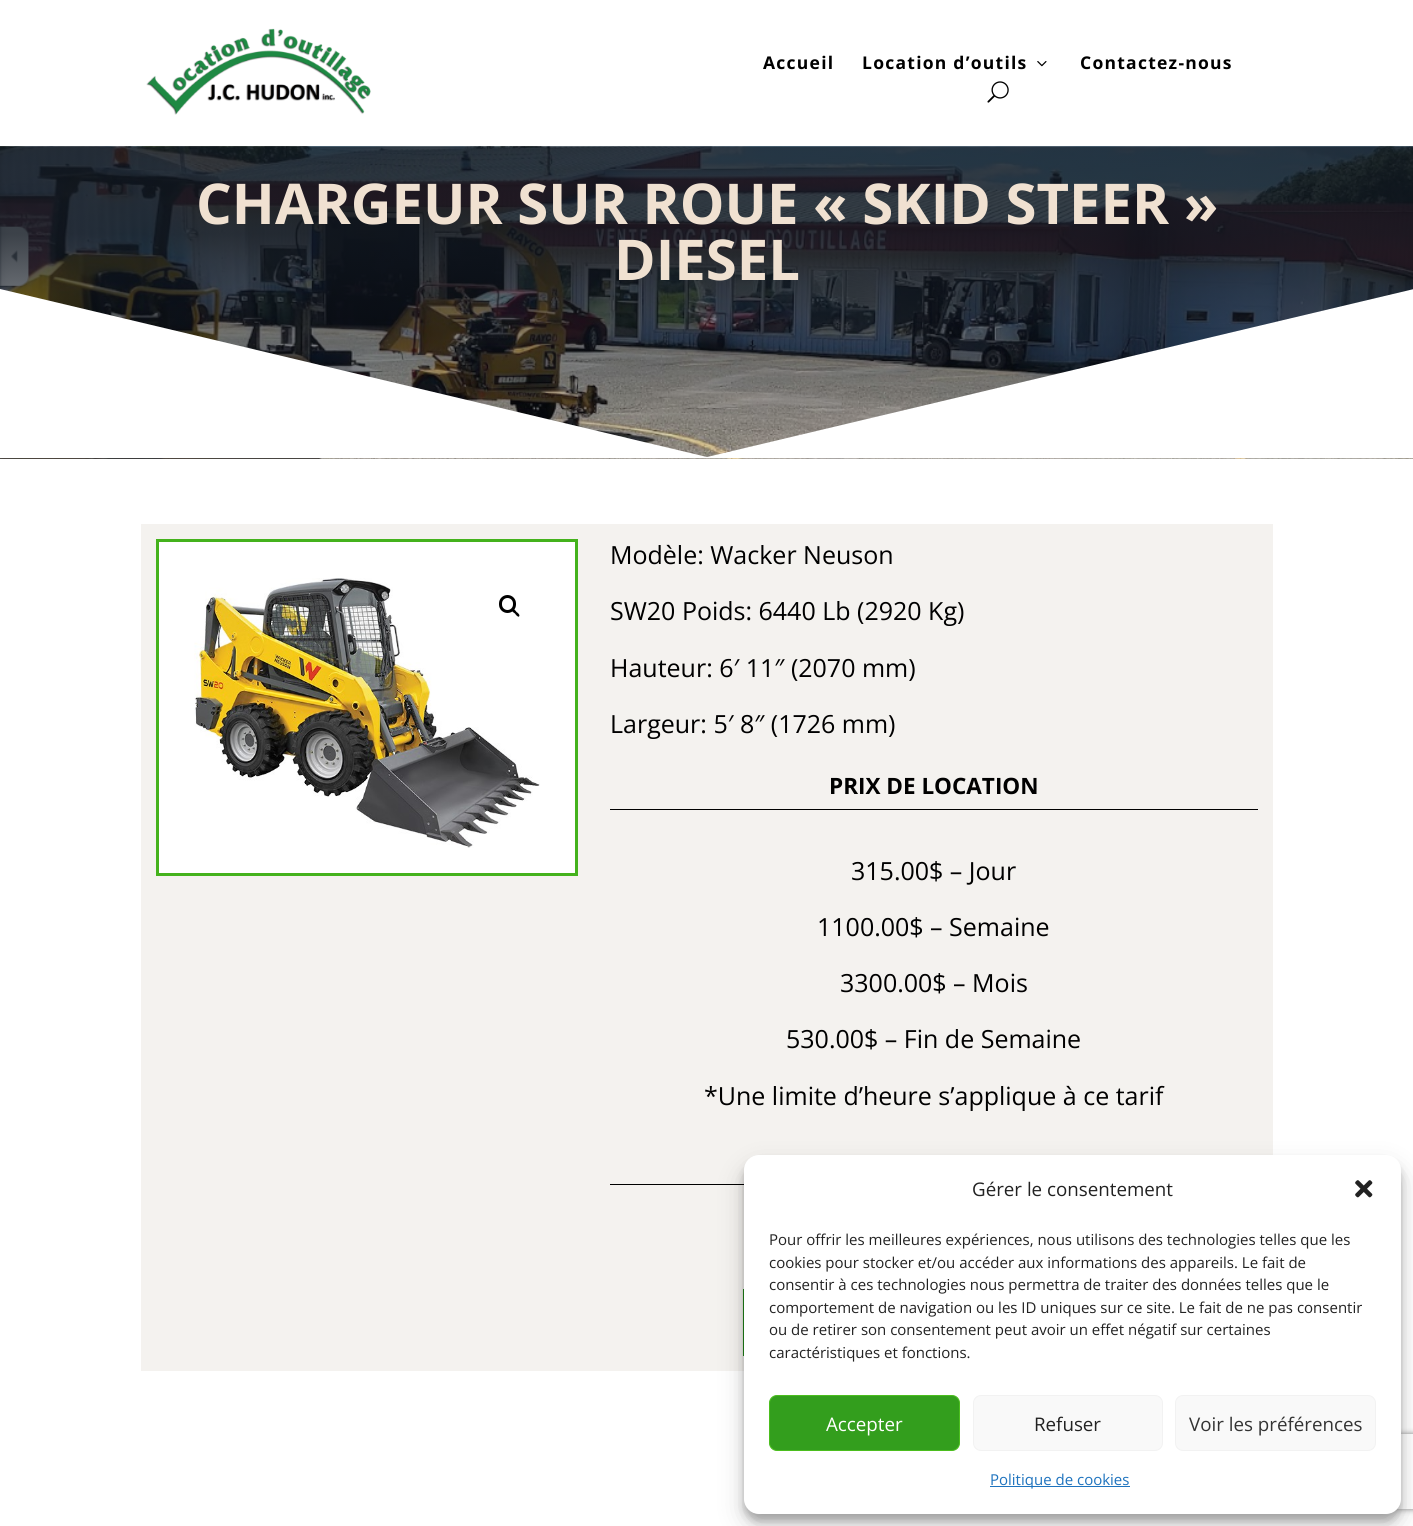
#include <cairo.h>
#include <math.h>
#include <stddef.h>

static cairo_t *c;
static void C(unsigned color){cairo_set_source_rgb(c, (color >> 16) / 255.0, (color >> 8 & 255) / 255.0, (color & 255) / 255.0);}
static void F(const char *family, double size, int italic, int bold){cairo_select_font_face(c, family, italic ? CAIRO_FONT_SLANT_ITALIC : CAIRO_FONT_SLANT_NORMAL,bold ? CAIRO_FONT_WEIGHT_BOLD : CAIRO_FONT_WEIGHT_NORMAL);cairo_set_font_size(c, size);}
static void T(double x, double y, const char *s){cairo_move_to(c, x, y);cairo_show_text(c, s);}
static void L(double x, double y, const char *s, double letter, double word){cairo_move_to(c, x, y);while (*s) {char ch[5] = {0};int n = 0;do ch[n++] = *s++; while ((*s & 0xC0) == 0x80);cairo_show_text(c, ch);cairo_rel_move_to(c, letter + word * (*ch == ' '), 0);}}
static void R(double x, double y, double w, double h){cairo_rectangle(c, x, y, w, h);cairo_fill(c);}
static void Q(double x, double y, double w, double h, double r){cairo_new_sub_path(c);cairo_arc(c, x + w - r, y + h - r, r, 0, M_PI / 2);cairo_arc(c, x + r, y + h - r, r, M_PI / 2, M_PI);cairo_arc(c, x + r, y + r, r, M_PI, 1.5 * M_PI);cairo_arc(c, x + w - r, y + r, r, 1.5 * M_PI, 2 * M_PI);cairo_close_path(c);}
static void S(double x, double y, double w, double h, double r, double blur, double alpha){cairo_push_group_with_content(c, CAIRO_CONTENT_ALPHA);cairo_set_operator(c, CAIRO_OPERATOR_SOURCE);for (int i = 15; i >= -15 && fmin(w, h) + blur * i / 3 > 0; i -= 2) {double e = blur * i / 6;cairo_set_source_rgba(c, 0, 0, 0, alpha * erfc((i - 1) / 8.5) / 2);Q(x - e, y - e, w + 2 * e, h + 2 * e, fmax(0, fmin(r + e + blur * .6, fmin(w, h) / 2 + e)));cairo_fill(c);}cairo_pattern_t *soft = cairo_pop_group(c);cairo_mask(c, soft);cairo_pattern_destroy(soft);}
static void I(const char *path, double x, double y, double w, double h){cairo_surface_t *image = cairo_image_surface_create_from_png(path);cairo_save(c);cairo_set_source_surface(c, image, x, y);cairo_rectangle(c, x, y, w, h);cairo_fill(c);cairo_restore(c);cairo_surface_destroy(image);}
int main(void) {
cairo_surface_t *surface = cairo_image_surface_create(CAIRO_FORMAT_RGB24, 1413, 1526);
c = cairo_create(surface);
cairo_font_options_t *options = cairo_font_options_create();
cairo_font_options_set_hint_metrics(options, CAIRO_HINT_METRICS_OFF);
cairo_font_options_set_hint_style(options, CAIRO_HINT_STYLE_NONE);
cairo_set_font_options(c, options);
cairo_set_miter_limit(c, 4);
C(0xffffff);
cairo_paint(c);
I("1.png",146,28,225,87);
F("Open Sans",17.5,0,1);
C(0x000000);
L(763,69,"Accueil",1.25,0);
L(862,69,"Location d’outils",1.25,0);
I("2.png",1037,61,10,6);
L(1080,69,"Contactez-nous",1.25,0);
I("3.png",987,81,22,22);
I("4.png",0,146,1413,313);
F("Open Sans",56.25,0,1);
C(0xf0e1d1);
T(196,224,"CHARGEUR SUR ROUE « SKID STEER »");
T(614,280,"DIESEL");
C(0xffffff);
cairo_new_path(c);
cairo_move_to(c,707,457);
cairo_line_to(c,0,289);
cairo_line_to(c,0,458);
cairo_line_to(c,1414,458);
cairo_line_to(c,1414,289);
cairo_close_path(c);
cairo_fill(c);
C(0xf4f2ef);
R(141,524,1132,847);
C(0xffffff);
cairo_rectangle(c,157.5,540.5,419,334);
cairo_fill_preserve(c);
C(0x44b21c);
cairo_set_line_width(c,3);
cairo_stroke(c);
I("5.png",194,578,346,270);
Q(500.5,596.5,14,15,7);
C(0x000000);
cairo_stroke(c);
cairo_new_path(c);
cairo_move_to(c,512,609);
cairo_curve_to(c,513.5,608,516,611,516.5,612);
cairo_curve_to(c,517.5,612.5,520.5,615,519,616.5);
cairo_curve_to(c,518,617.5,515.5,614.5,515,613.5);
cairo_curve_to(c,514,613,510.5,610.5,512,609);
cairo_close_path(c);
cairo_fill(c);
F("Open Sans",25,0,0);
T(610,564,"Modèle: Wacker Neuson");
T(610,620,"SW20 Poids: 6440 Lb (2920 Kg)");
T(610,677,"Hauteur: 6′ 11″ (2070 mm)");
T(610,733,"Largeur: 5′ 8″ (1726 mm)");
F("Open Sans",22.5,0,1);
T(829,794,"PRIX DE LOCATION");
R(610,809,648,1);
F("Open Sans",25,0,0);
T(851,880,"315.00$ – Jour");
T(817,936,"1100.00$ – Semaine");
T(840,992,"3300.00$ – Mois");
T(786,1048,"530.00$ – Fin de Semaine");
T(704,1105,"*Une limite d’heure s’applique à ce tarif");
R(610,1184,134,1);
C(0x1d8416);
R(743,1289,1,67);
C(0x000000);
S(744,1163,657,358,15,4,.23);
S(744,1168,657,358,15,12.5,.19);
cairo_save(c);
cairo_set_fill_rule(c,CAIRO_FILL_RULE_EVEN_ODD);
cairo_new_path(c);
cairo_move_to(c,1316,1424);
cairo_line_to(c,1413,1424);
cairo_line_to(c,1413,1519);
cairo_line_to(c,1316,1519);
cairo_close_path(c);
cairo_move_to(c,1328.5,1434);
cairo_line_to(c,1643.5,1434);
cairo_curve_to(c,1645,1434,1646,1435,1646,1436.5);
cairo_line_to(c,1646,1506.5);
cairo_curve_to(c,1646,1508,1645,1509,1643.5,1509);
cairo_line_to(c,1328.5,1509);
cairo_curve_to(c,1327,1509,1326,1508,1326,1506.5);
cairo_line_to(c,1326,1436.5);
cairo_curve_to(c,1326,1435,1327,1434,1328.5,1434);
cairo_close_path(c);
cairo_clip(c);
C(0x808080);
S(1326,1434,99,75,2.5,3,1);
cairo_restore(c);
C(0xffffff);
Q(744,1155,657,359,15);
cairo_fill(c);
F("Open Sans",18.75,0,0);
C(0x222222);
T(972,1196,"Gérer le consentement");
I("6.png",1355,1180,18,18);
F("Open Sans",15,0,0);
T(769,1245,"Pour offrir les meilleures expériences, nous utilisons des technologies telles que les");
T(769,1268,"cookies pour stocker et/ou accéder aux informations des appareils. Le fait de");
T(769,1290,"consentir à ces technologies nous permettra de traiter des données telles que le");
T(769,1313,"comportement de navigation ou les ID uniques sur ce site. Le fait de ne pas consentir");
T(769,1335,"ou de retirer son consentement peut avoir un effet négatif sur certaines");
T(769,1358,"caractéristiques et fonctions.");
C(0x339e1d);
Q(769.5,1395.5,190,55,7.5);
cairo_fill_preserve(c);
C(0x4bbe1e);
cairo_set_line_width(c,1);
cairo_stroke(c);
F("Open Sans",18.75,0,0);
C(0xffffff);
T(826,1431,"Accepter");
C(0xf9f9f9);
Q(973.5,1395.5,189,55,7.5);
cairo_fill_preserve(c);
C(0xf2f2f2);
cairo_stroke(c);
C(0x222222);
T(1034,1431,"Refuser");
C(0xf9f9f9);
Q(1175.5,1395.5,200,55,7.5);
cairo_fill_preserve(c);
C(0xf2f2f2);
cairo_stroke(c);
C(0x333333);
T(1189,1431,"Voir les préférences");
C(0x1e73be);
R(990,1486,140,1);
F("Open Sans",15,0,0);
T(990,1485,"Politique de cookies");
cairo_surface_write_to_png(surface, "o.png");
cairo_font_options_destroy(options);
cairo_destroy(c);
cairo_surface_destroy(surface);
return 0;
}
